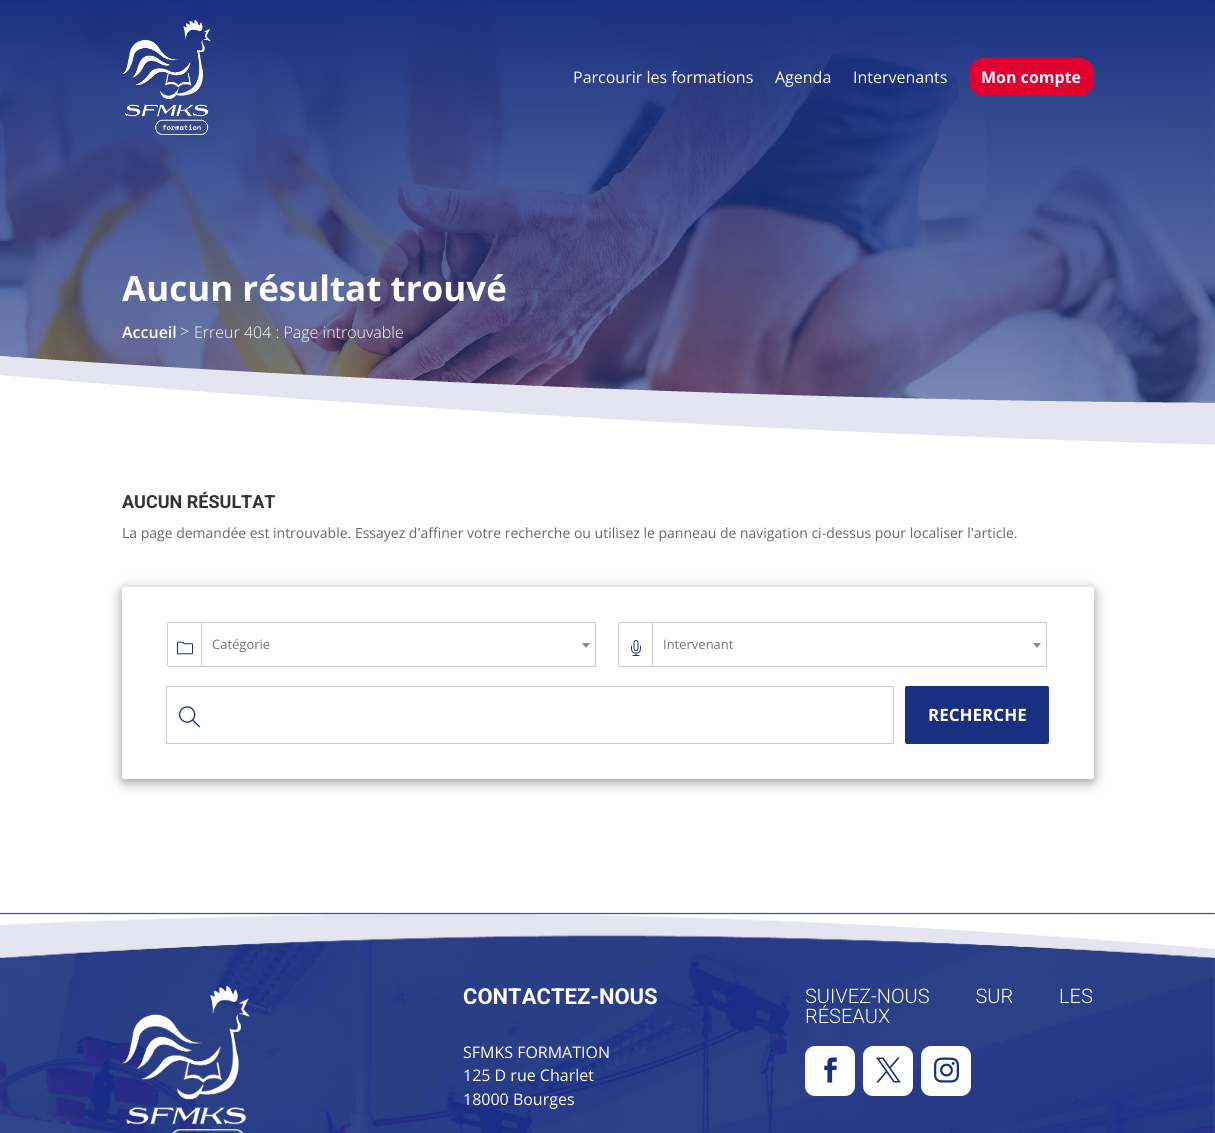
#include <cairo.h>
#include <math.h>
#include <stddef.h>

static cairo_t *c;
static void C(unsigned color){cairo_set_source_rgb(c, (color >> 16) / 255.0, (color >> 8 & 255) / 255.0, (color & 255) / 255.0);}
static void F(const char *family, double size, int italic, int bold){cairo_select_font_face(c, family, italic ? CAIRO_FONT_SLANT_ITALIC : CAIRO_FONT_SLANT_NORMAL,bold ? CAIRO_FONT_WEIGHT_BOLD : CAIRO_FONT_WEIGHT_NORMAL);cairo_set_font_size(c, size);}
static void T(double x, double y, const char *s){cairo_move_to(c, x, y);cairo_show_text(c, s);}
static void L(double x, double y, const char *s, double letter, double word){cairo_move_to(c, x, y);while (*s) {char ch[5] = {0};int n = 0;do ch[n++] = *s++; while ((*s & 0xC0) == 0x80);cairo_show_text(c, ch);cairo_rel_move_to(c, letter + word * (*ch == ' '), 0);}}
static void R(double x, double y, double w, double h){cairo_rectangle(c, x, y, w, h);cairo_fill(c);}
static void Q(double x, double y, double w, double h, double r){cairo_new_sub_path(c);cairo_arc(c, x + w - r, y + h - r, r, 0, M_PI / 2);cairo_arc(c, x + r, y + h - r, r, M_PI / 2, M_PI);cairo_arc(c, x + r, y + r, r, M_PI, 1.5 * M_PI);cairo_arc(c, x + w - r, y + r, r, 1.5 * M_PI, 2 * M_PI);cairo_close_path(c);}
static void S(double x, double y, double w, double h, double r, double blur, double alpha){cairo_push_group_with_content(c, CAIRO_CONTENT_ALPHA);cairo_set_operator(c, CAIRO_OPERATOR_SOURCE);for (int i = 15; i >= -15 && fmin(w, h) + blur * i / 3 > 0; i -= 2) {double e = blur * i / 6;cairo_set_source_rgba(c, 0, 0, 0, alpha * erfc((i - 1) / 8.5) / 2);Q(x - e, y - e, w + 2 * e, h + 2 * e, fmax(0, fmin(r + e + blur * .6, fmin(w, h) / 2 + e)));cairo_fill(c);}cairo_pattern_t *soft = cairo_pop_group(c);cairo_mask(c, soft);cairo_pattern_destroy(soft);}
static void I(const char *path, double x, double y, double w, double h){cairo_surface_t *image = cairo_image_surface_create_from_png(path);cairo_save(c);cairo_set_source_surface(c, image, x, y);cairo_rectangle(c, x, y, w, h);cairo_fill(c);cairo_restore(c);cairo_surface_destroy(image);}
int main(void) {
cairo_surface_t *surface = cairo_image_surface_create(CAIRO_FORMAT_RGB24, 1215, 1133);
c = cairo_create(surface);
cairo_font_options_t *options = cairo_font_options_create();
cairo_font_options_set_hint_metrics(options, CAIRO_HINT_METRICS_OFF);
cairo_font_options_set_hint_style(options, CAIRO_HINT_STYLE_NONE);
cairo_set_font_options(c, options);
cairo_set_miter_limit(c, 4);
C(0xffffff);
cairo_paint(c);
I("2.png",0,0,1215,403);
I("1.png",122,20,89,115);
F("Open Sans",16,0,0);
C(0xffffff);
T(573,83,"Parcourir les formations");
T(775,83,"Agenda");
T(853,83,"Intervenants");
C(0xdf002f);
Q(969,58,125,38,15);
cairo_fill(c);
F("Open Sans",16,0,1);
C(0xffffff);
T(981,83,"Mon compte");
F("Open Sans",35,0,1);
T(122,301,"Aucun résultat trouvé");
F("Open Sans SemiBold",16,0,0);
T(122,338,"Accueil");
F("Open Sans Light",16,0,0);
T(180,337,">");
T(194,338,"Erreur 404 : Page introuvable");
I("3.png",0,356,1215,93);
F("Roboto",18,0,1);
C(0x333333);
T(122,508,"AUCUN RÉSULTAT");
F("Open Sans",14,0,0);
C(0x666666);
T(122,538,"La page demandée est introuvable. Essayez d'affiner votre recherche ou utilisez le panneau de navigation ci-dessus pour localiser l'article.");
cairo_save(c);
cairo_set_fill_rule(c,CAIRO_FILL_RULE_EVEN_ODD);
cairo_new_path(c);
cairo_move_to(c,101,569);
cairo_line_to(c,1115,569);
cairo_line_to(c,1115,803);
cairo_line_to(c,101,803);
cairo_close_path(c);
cairo_move_to(c,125,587);
cairo_line_to(c,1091,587);
cairo_curve_to(c,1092.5,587,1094,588.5,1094,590);
cairo_line_to(c,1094,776);
cairo_curve_to(c,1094,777.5,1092.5,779,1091,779);
cairo_line_to(c,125,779);
cairo_curve_to(c,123.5,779,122,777.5,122,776);
cairo_line_to(c,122,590);
cairo_curve_to(c,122,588.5,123.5,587,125,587);
cairo_close_path(c);
cairo_clip(c);
C(0x000000);
S(122,590,972,192,3,6.5,.4);
cairo_restore(c);
cairo_set_source_rgba(c,1,1,1,0.87);
Q(122,587,972,192,3);
cairo_fill(c);
C(0xcccccc);
R(168,622,35,1);
R(168,666,35,1);
R(167,623,1,43);
I("4.png",177,641,16,14);
cairo_rectangle(c,201.5,622.5,394,44);
cairo_set_line_width(c,1);
cairo_stroke(c);
F("Open Sans",13,0,0);
C(0x777777);
T(212,649,"Catégorie");
C(0x888888);
cairo_new_path(c);
cairo_move_to(c,582,643);
cairo_line_to(c,590,643);
cairo_line_to(c,586,648);
cairo_close_path(c);
cairo_fill(c);
C(0xcccccc);
R(619,622,35,1);
R(619,666,35,1);
R(618,623,1,43);
I("5.png",631,640,10,16);
cairo_rectangle(c,652.5,622.5,394,44);
cairo_stroke(c);
C(0x777777);
T(663,649,"Intervenant");
C(0x888888);
cairo_new_path(c);
cairo_move_to(c,1033,643);
cairo_line_to(c,1041,643);
cairo_line_to(c,1037,648);
cairo_close_path(c);
cairo_fill(c);
cairo_rectangle(c,166.5,686.5,727,57);
C(0xcccccc);
cairo_stroke(c);
I("6.png",178,706,22,22);
C(0xfcfcfc);
cairo_new_path(c);
cairo_move_to(c,905,742);
cairo_line_to(c,905,744);
cairo_line_to(c,907,745);
cairo_line_to(c,1048,745);
cairo_curve_to(c,1049,744,1049,743,1049,742);
cairo_curve_to(c,1049,743,1048,744,1047,744);
cairo_line_to(c,907,744);
cairo_curve_to(c,906,744,905,743,905,742);
cairo_close_path(c);
cairo_fill(c);
C(0x193080);
Q(905,686,144,58,2);
cairo_fill(c);
F("Open Sans",17,0,1);
C(0xffffff);
T(928,721,"RECHERCHE");
I("8.png",0,912,1215,221);
I("7.png",0,913,1215,45);
I("9.png",122,986,128,147);
F("Roboto",22,0,1);
T(463,1004,"CONTACTEZ-NOUS");
F("Open Sans",16,0,0);
T(463,1058,"SFMKS FORMATION");
T(463,1081,"125 D rue Charlet");
T(463,1105,"18000 Bourges");
F("Roboto Light",20,0,0);
L(805,1003,"SUIVEZ-NOUS SUR LES",0,41);
T(805,1023,"RÉSEAUX");
Q(805,1046,50,50,10);
cairo_fill(c);
I("10.png",824,1057,13,26);
Q(863,1046,50,50,10);
cairo_fill(c);
I("11.png",876,1057,25,26);
Q(921,1046,50,50,10);
cairo_fill(c);
I("12.png",934,1057,25,26);
cairo_surface_write_to_png(surface, "o.png");
cairo_font_options_destroy(options);
cairo_destroy(c);
cairo_surface_destroy(surface);
return 0;
}
